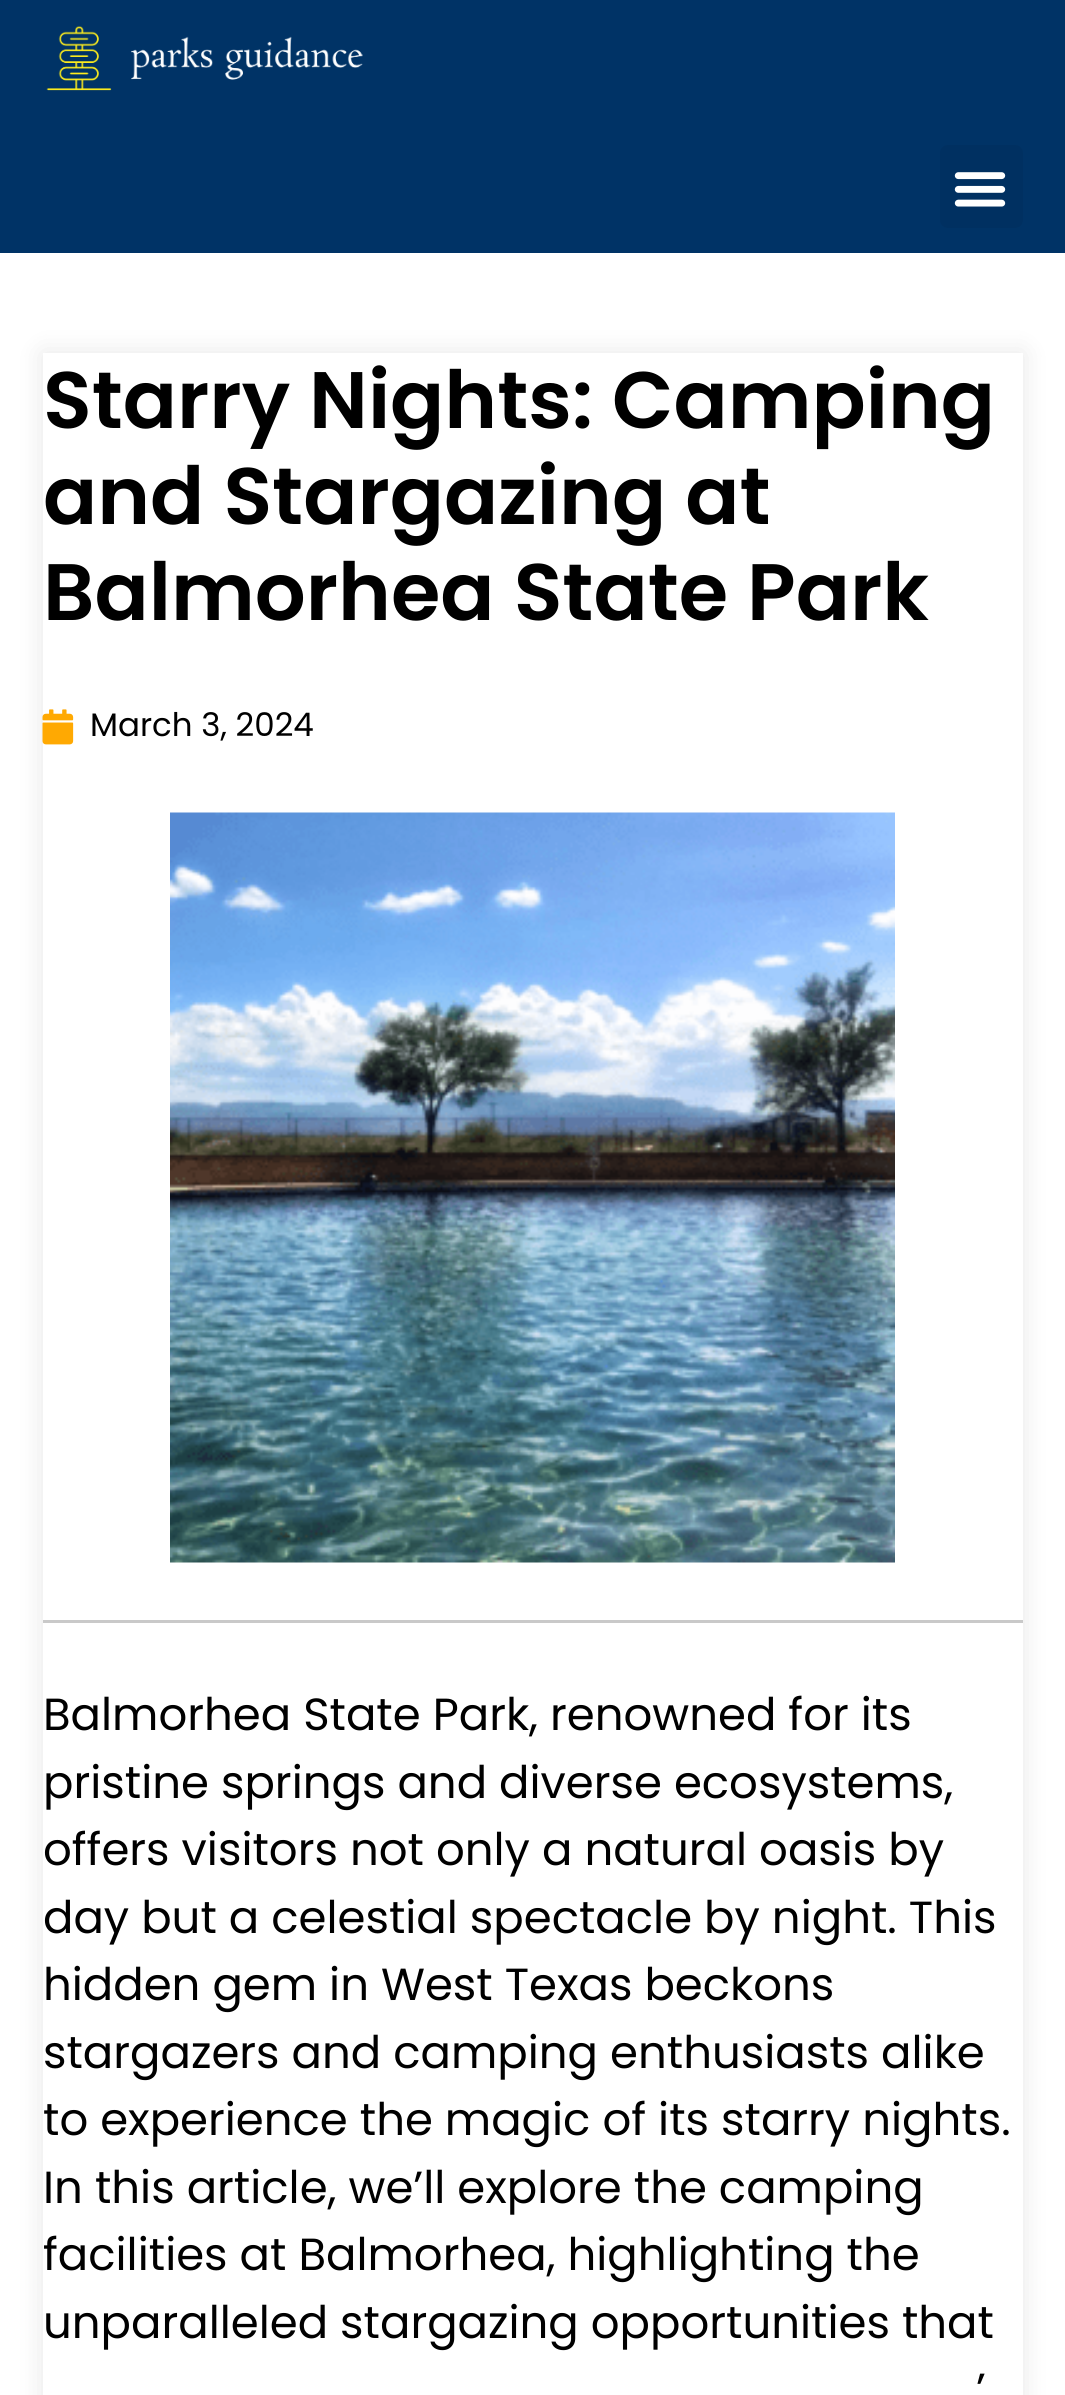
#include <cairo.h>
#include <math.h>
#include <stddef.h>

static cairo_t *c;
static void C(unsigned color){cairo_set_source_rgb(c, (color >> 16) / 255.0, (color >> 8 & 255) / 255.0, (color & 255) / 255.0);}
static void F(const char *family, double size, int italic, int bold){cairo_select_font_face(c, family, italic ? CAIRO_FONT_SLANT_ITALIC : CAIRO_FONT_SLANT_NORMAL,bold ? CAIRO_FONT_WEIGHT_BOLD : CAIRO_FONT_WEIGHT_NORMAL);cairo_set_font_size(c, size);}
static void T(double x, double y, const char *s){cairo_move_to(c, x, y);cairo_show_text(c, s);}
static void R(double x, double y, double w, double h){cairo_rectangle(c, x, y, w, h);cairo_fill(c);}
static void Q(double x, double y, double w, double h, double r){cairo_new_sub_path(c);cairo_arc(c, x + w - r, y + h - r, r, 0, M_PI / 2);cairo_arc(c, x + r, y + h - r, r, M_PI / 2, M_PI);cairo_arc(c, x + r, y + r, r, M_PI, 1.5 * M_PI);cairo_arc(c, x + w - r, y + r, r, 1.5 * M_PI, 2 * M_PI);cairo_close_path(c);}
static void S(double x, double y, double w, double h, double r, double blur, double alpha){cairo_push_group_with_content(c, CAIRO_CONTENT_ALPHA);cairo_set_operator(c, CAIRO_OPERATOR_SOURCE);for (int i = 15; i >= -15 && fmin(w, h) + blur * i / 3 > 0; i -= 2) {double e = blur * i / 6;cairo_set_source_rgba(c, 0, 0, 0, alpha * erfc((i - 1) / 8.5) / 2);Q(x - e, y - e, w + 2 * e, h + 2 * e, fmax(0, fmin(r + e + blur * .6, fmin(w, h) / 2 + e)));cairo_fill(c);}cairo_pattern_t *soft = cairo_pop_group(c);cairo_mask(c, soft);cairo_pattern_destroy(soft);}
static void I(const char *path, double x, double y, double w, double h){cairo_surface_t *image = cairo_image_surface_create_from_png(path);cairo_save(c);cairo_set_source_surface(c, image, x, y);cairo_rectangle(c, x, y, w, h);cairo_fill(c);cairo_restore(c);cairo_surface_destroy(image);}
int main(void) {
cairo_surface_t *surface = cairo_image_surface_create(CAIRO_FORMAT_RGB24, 1065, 2395);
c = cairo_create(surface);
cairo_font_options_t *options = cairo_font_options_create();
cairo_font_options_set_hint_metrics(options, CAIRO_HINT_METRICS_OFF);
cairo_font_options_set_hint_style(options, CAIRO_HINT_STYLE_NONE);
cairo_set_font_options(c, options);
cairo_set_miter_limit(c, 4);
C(0xffffff);
cairo_paint(c);
C(0x003366);
R(0,0,1065,253);
I("1.png",46,26,317,65);
C(0x003061);
Q(940,145,83,83,8);
cairo_fill(c);
I("2.png",954,172,52,35);
cairo_save(c);
cairo_set_fill_rule(c,CAIRO_FILL_RULE_EVEN_ODD);
cairo_new_path(c);
cairo_move_to(c,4,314);
cairo_line_to(c,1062,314);
cairo_line_to(c,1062,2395);
cairo_line_to(c,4,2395);
cairo_close_path(c);
cairo_move_to(c,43,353);
cairo_line_to(c,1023,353);
cairo_line_to(c,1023,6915);
cairo_line_to(c,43,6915);
cairo_close_path(c);
cairo_clip(c);
C(0x000000);
S(43,353,980,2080,0,12.5,.1);
cairo_restore(c);
F("Poppins SemiBold",80,0,0);
C(0x000000);
T(43,428,"Starry Nights: Camping");
T(43,524,"and Stargazing at");
T(43,620,"Balmorhea State Park");
I("3.png",42,709,32,36);
F("Poppins",32.5,0,0);
T(90,736,"March 3, 2024");
I("4.png",170,812,725,751);
C(0xc9c9c9);
R(43,1620,980,3);
F("Poppins",45,0,0);
C(0x000000);
T(43,1730,"Balmorhea State Park, renowned for its");
T(43,1798,"pristine springs and diverse ecosystems,");
T(43,1865,"offers visitors not only a natural oasis by");
T(43,1933,"day but a celestial spectacle by night. This");
T(43,2000,"hidden gem in West Texas beckons");
T(43,2068,"stargazers and camping enthusiasts alike");
T(43,2135,"to experience the magic of its starry nights.");
T(43,2203,"In this article, we’ll explore the camping");
T(43,2270,"facilities at Balmorhea, highlighting the");
T(43,2338,"unparalleled stargazing opportunities that");
T(976,2405,"’");
cairo_surface_write_to_png(surface, "o.png");
cairo_font_options_destroy(options);
cairo_destroy(c);
cairo_surface_destroy(surface);
return 0;
}
